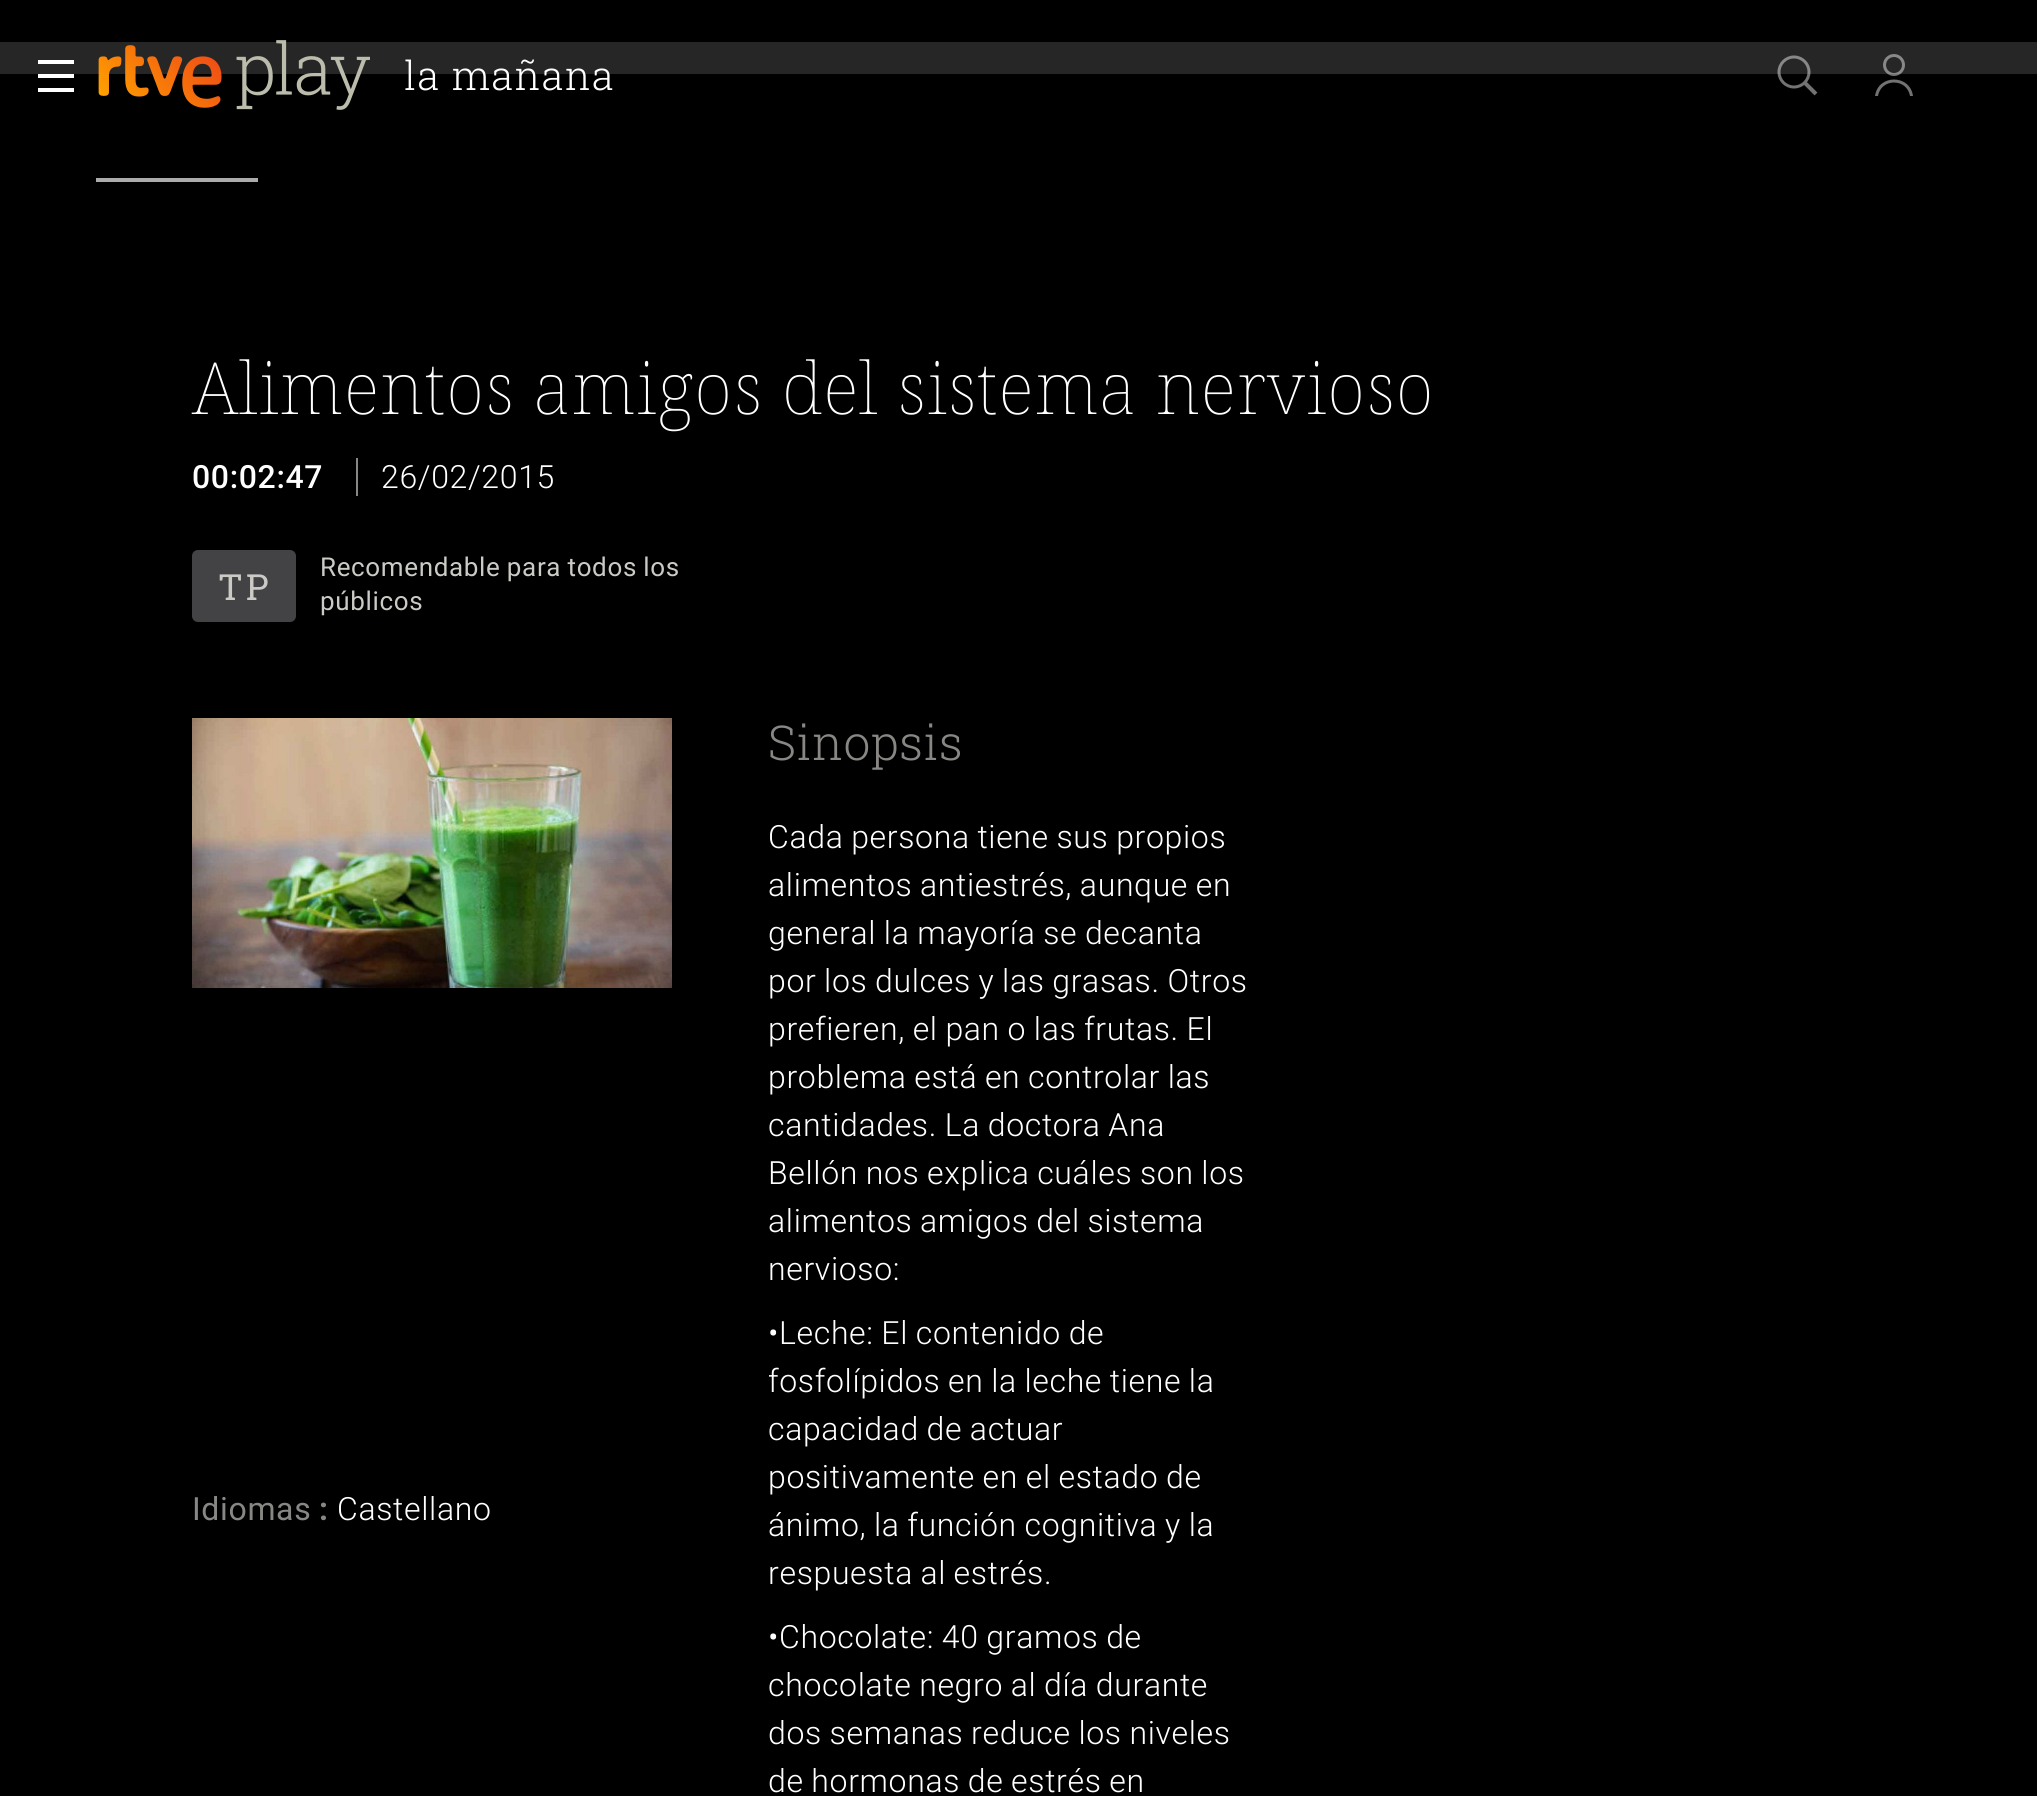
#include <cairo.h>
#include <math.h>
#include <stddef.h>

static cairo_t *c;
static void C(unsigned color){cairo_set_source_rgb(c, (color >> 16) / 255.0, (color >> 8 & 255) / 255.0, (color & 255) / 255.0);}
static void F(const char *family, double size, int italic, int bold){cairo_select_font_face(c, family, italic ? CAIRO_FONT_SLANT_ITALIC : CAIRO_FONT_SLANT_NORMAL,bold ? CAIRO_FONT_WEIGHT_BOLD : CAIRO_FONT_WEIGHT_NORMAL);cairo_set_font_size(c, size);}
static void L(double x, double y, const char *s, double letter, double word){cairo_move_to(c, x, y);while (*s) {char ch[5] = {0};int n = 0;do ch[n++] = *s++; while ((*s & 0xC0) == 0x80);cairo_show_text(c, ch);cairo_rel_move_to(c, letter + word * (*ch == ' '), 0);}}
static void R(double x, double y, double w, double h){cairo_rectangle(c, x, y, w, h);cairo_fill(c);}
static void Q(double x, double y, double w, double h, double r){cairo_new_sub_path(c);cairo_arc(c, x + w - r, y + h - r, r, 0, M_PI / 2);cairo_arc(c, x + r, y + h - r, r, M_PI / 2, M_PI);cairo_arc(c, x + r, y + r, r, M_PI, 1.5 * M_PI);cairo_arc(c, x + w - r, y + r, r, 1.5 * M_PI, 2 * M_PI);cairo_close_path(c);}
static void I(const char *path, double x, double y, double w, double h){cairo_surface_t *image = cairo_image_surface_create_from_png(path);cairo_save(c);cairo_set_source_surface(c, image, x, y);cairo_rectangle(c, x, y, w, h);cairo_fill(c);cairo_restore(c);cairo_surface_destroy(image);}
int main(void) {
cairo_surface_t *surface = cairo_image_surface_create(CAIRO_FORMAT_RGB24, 2037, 1796);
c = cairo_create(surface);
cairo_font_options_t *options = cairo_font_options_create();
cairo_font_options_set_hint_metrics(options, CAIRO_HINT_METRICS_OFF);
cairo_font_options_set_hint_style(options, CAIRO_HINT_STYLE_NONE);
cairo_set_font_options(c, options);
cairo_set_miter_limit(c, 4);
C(0x000000);
cairo_paint(c);
C(0xffffff);
R(0,42,2037,32);
cairo_set_source_rgba(c,0,0,0,0.85);
R(0,42,2037,32);
C(0xffffff);
R(38,60,36,4);
R(38,74,36,4);
R(38,88,36,4);
I("1.png",98,45,124,63);
I("2.png",236,40,134,70);
F("Roboto Slab Light",40,0,0);
L(404,90,"la mañana",1.25,0);
cairo_new_path(c);
cairo_arc(c,1794,72,15,0,2 * M_PI);
cairo_set_source_rgba(c,1,1,1,0.45);
cairo_set_line_width(c,3);
cairo_stroke(c);
cairo_new_path(c);
cairo_move_to(c,1804.5,82.5);
cairo_line_to(c,1816,94);
C(0x727272);
cairo_set_line_width(c,4);
cairo_stroke(c);
cairo_new_path(c);
cairo_move_to(c,1878,96);
cairo_curve_to(c,1881,78,1907,78,1910,96);
cairo_line_to(c,1913,96);
cairo_curve_to(c,1910,74,1878,74,1875,96);
cairo_close_path(c);
cairo_fill(c);
cairo_arc(c,1894,65,9.5,0,2 * M_PI);
cairo_set_source_rgba(c,1,1,1,0.45);
cairo_set_line_width(c,3);
cairo_stroke(c);
C(0xababab);
R(96,178,162,4);
F("Noto Serif Thin",72,0,0);
C(0xffffff);
L(192,414,"Alimentos amigos del sistema nervioso",.65,-.75);
F("Roboto Medium",32,0,0);
L(192,488,"00:02:47",.65,0);
F("Roboto Light",32,0,0);
L(381,488,"26/02/2015",.65,0);
C(0x888784);
R(356,458,2,38);
C(0x434346);
Q(192,550,104,72,6);
cairo_fill(c);
F("Roboto Slab",36,0,0);
C(0xcbcac5);
L(218,600,"TP",3,0);
F("Roboto",26,0,0);
L(320,576,"Recomendable para todos los",.65,-.75);
L(320,610,"públicos",.65,0);
I("3.png",192,718,480,270);
F("Roboto Slab Light",48,0,0);
C(0x888784);
L(768,760,"Sinopsis",.65,0);
F("Roboto Light",32,0,0);
C(0xffffff);
L(768,848,"Cada persona tiene sus propios",.65,-.75);
L(768,896,"alimentos antiestrés, aunque en",.65,-.75);
L(768,944,"general la mayoría se decanta",.65,-.75);
L(768,992,"por los dulces y las grasas. Otros",.65,-.75);
L(768,1040,"prefieren, el pan o las frutas. El",.65,-.75);
L(768,1088,"problema está en controlar las",.65,-.75);
L(768,1136,"cantidades. La doctora Ana",.65,-.75);
L(768,1184,"Bellón nos explica cuáles son los",.65,-.75);
L(768,1232,"alimentos amigos del sistema",.65,-.75);
L(768,1280,"nervioso:",.65,0);
L(768,1344,"•Leche: El contenido de",.65,-.75);
L(768,1392,"fosfolípidos en la leche tiene la",.65,-.75);
L(768,1440,"capacidad de actuar",.65,-.75);
L(768,1488,"positivamente en el estado de",.65,-.75);
L(768,1536,"ánimo, la función cognitiva y la",.65,-.75);
L(768,1584,"respuesta al estrés.",.65,-1);
L(768,1648,"•Chocolate: 40 gramos de",.65,-.75);
L(768,1696,"chocolate negro al día durante",.65,-.75);
L(768,1744,"dos semanas reduce los niveles",.65,-.75);
L(768,1792,"de hormonas de estrés en",.65,-.75);
F("Roboto",32,0,0);
C(0x888784);
L(192,1520,"Idiomas",.65,0);
F("Roboto",32,0,1);
L(319,1520,":",.65,0);
F("Roboto Light",32,0,0);
C(0xffffff);
L(337,1520,"Castellano",.65,0);
cairo_surface_write_to_png(surface, "o.png");
cairo_font_options_destroy(options);
cairo_destroy(c);
cairo_surface_destroy(surface);
return 0;
}
